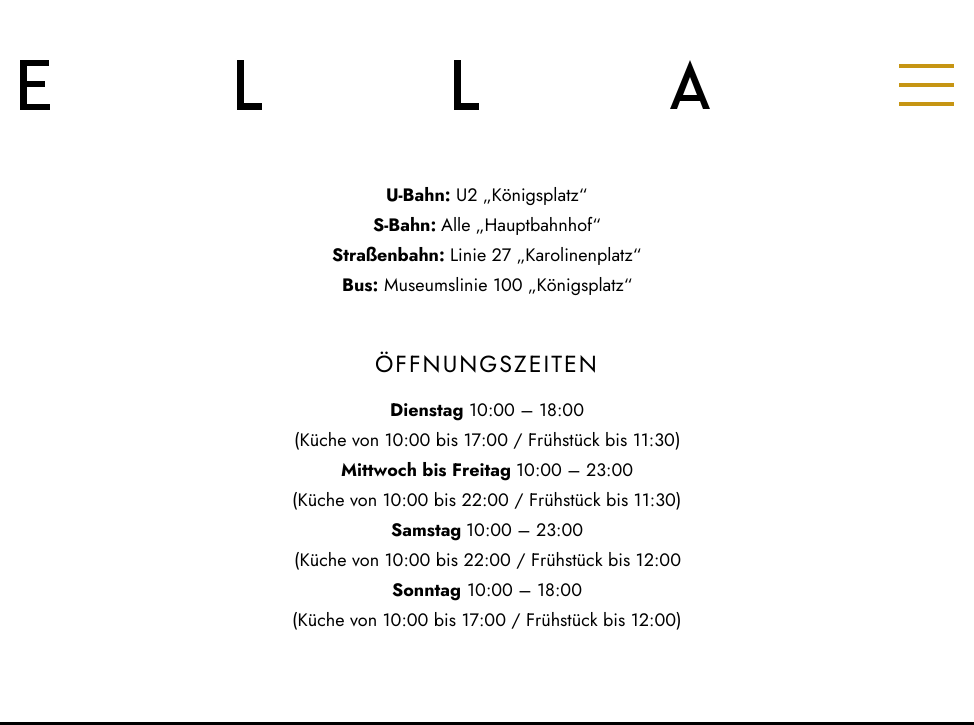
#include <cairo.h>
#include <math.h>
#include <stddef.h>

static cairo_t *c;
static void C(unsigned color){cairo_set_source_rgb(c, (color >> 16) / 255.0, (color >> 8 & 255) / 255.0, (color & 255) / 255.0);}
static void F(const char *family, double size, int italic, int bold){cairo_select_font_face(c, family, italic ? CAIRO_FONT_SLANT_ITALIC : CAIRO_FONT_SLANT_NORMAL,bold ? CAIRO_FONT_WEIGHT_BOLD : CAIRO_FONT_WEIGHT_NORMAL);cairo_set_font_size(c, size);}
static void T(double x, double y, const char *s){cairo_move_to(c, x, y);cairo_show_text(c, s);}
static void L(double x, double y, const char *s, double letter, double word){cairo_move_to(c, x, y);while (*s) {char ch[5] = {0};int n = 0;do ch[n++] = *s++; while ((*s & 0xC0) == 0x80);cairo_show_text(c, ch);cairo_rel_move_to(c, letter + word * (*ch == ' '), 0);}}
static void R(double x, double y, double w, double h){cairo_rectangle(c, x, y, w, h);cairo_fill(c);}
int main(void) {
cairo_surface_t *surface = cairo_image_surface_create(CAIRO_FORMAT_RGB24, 974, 725);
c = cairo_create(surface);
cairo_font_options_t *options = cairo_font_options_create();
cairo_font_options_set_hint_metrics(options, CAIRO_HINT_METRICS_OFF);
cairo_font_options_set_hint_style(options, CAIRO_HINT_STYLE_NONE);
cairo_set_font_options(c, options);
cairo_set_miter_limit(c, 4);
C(0xffffff);
cairo_paint(c);
C(0x000000);
cairo_new_path(c);
cairo_move_to(c,27,104);
cairo_line_to(c,50,104);
cairo_line_to(c,50,110);
cairo_line_to(c,20,110);
cairo_line_to(c,20,60);
cairo_line_to(c,49,60);
cairo_line_to(c,49,66);
cairo_line_to(c,27,66);
cairo_line_to(c,27,81);
cairo_line_to(c,45,81);
cairo_line_to(c,45,87);
cairo_line_to(c,27,87);
cairo_close_path(c);
cairo_fill(c);
cairo_save(c);
cairo_rectangle(c,237,60,25,50);
cairo_clip(c);
cairo_new_path(c);
cairo_move_to(c,237,60);
cairo_line_to(c,244,60);
cairo_line_to(c,244,103);
cairo_line_to(c,263,103);
cairo_line_to(c,263,110);
cairo_line_to(c,237,110);
cairo_close_path(c);
cairo_fill(c);
cairo_restore(c);
cairo_save(c);
cairo_rectangle(c,454,60,25,50);
cairo_clip(c);
cairo_new_path(c);
cairo_move_to(c,454,60);
cairo_line_to(c,461,60);
cairo_line_to(c,461,103);
cairo_line_to(c,480,103);
cairo_line_to(c,480,110);
cairo_line_to(c,454,110);
cairo_close_path(c);
cairo_fill(c);
cairo_restore(c);
cairo_new_path(c);
cairo_move_to(c,700,101);
cairo_line_to(c,703,109);
cairo_line_to(c,710,109);
cairo_line_to(c,690,60);
cairo_line_to(c,670,109);
cairo_line_to(c,677,109);
cairo_line_to(c,680,101);
cairo_close_path(c);
cairo_move_to(c,697,95);
cairo_line_to(c,683,95);
cairo_line_to(c,690,77);
cairo_close_path(c);
cairo_fill(c);
C(0xc69513);
R(899,64,55,4);
R(899,83,55,4);
R(899,102,55,4);
C(0x000000);
R(0,722,974,3);
F("Jost",18,0,1);
T(386,201,"U-Bahn:");
F("Jost",18,0,0);
T(456,201,"U2 „Königsplatz“");
F("Jost",18,0,1);
T(373,231,"S-Bahn:");
F("Jost",18,0,0);
T(441,231,"Alle „Hauptbahnhof“");
F("Jost",18,0,1);
T(332,261,"Straßenbahn:");
F("Jost",18,0,0);
T(450,261,"Linie 27 „Karolinenplatz“");
F("Jost",18,0,1);
T(342,291,"Bus:");
F("Jost",18,0,0);
T(384,291,"Museumslinie 100 „Königsplatz“");
F("Jost",23.25,0,0);
L(375,372,"ÖFFNUNGSZEITEN",2,0);
F("Jost",18,0,1);
T(390,416,"Dienstag");
F("Jost",18,0,0);
T(469,416,"10:00 – 18:00");
T(294,446,"(Küche von 10:00 bis 17:00 / Frühstück bis 11:30)");
F("Jost",18,0,1);
T(341,476,"Mittwoch bis Freitag");
F("Jost",18,0,0);
T(516,476,"10:00 – 23:00");
T(292,506,"(Küche von 10:00 bis 22:00 / Frühstück bis 11:30)");
F("Jost",18,0,1);
T(391,536,"Samstag");
F("Jost",18,0,0);
T(466,536,"10:00 – 23:00");
T(294,566,"(Küche von 10:00 bis 22:00 / Frühstück bis 12:00");
F("Jost",18,0,1);
T(392,596,"Sonntag");
F("Jost",18,0,0);
T(467,596,"10:00 – 18:00");
T(292,626,"(Küche von 10:00 bis 17:00 / Frühstück bis 12:00)");
cairo_surface_write_to_png(surface, "o.png");
cairo_font_options_destroy(options);
cairo_destroy(c);
cairo_surface_destroy(surface);
return 0;
}
